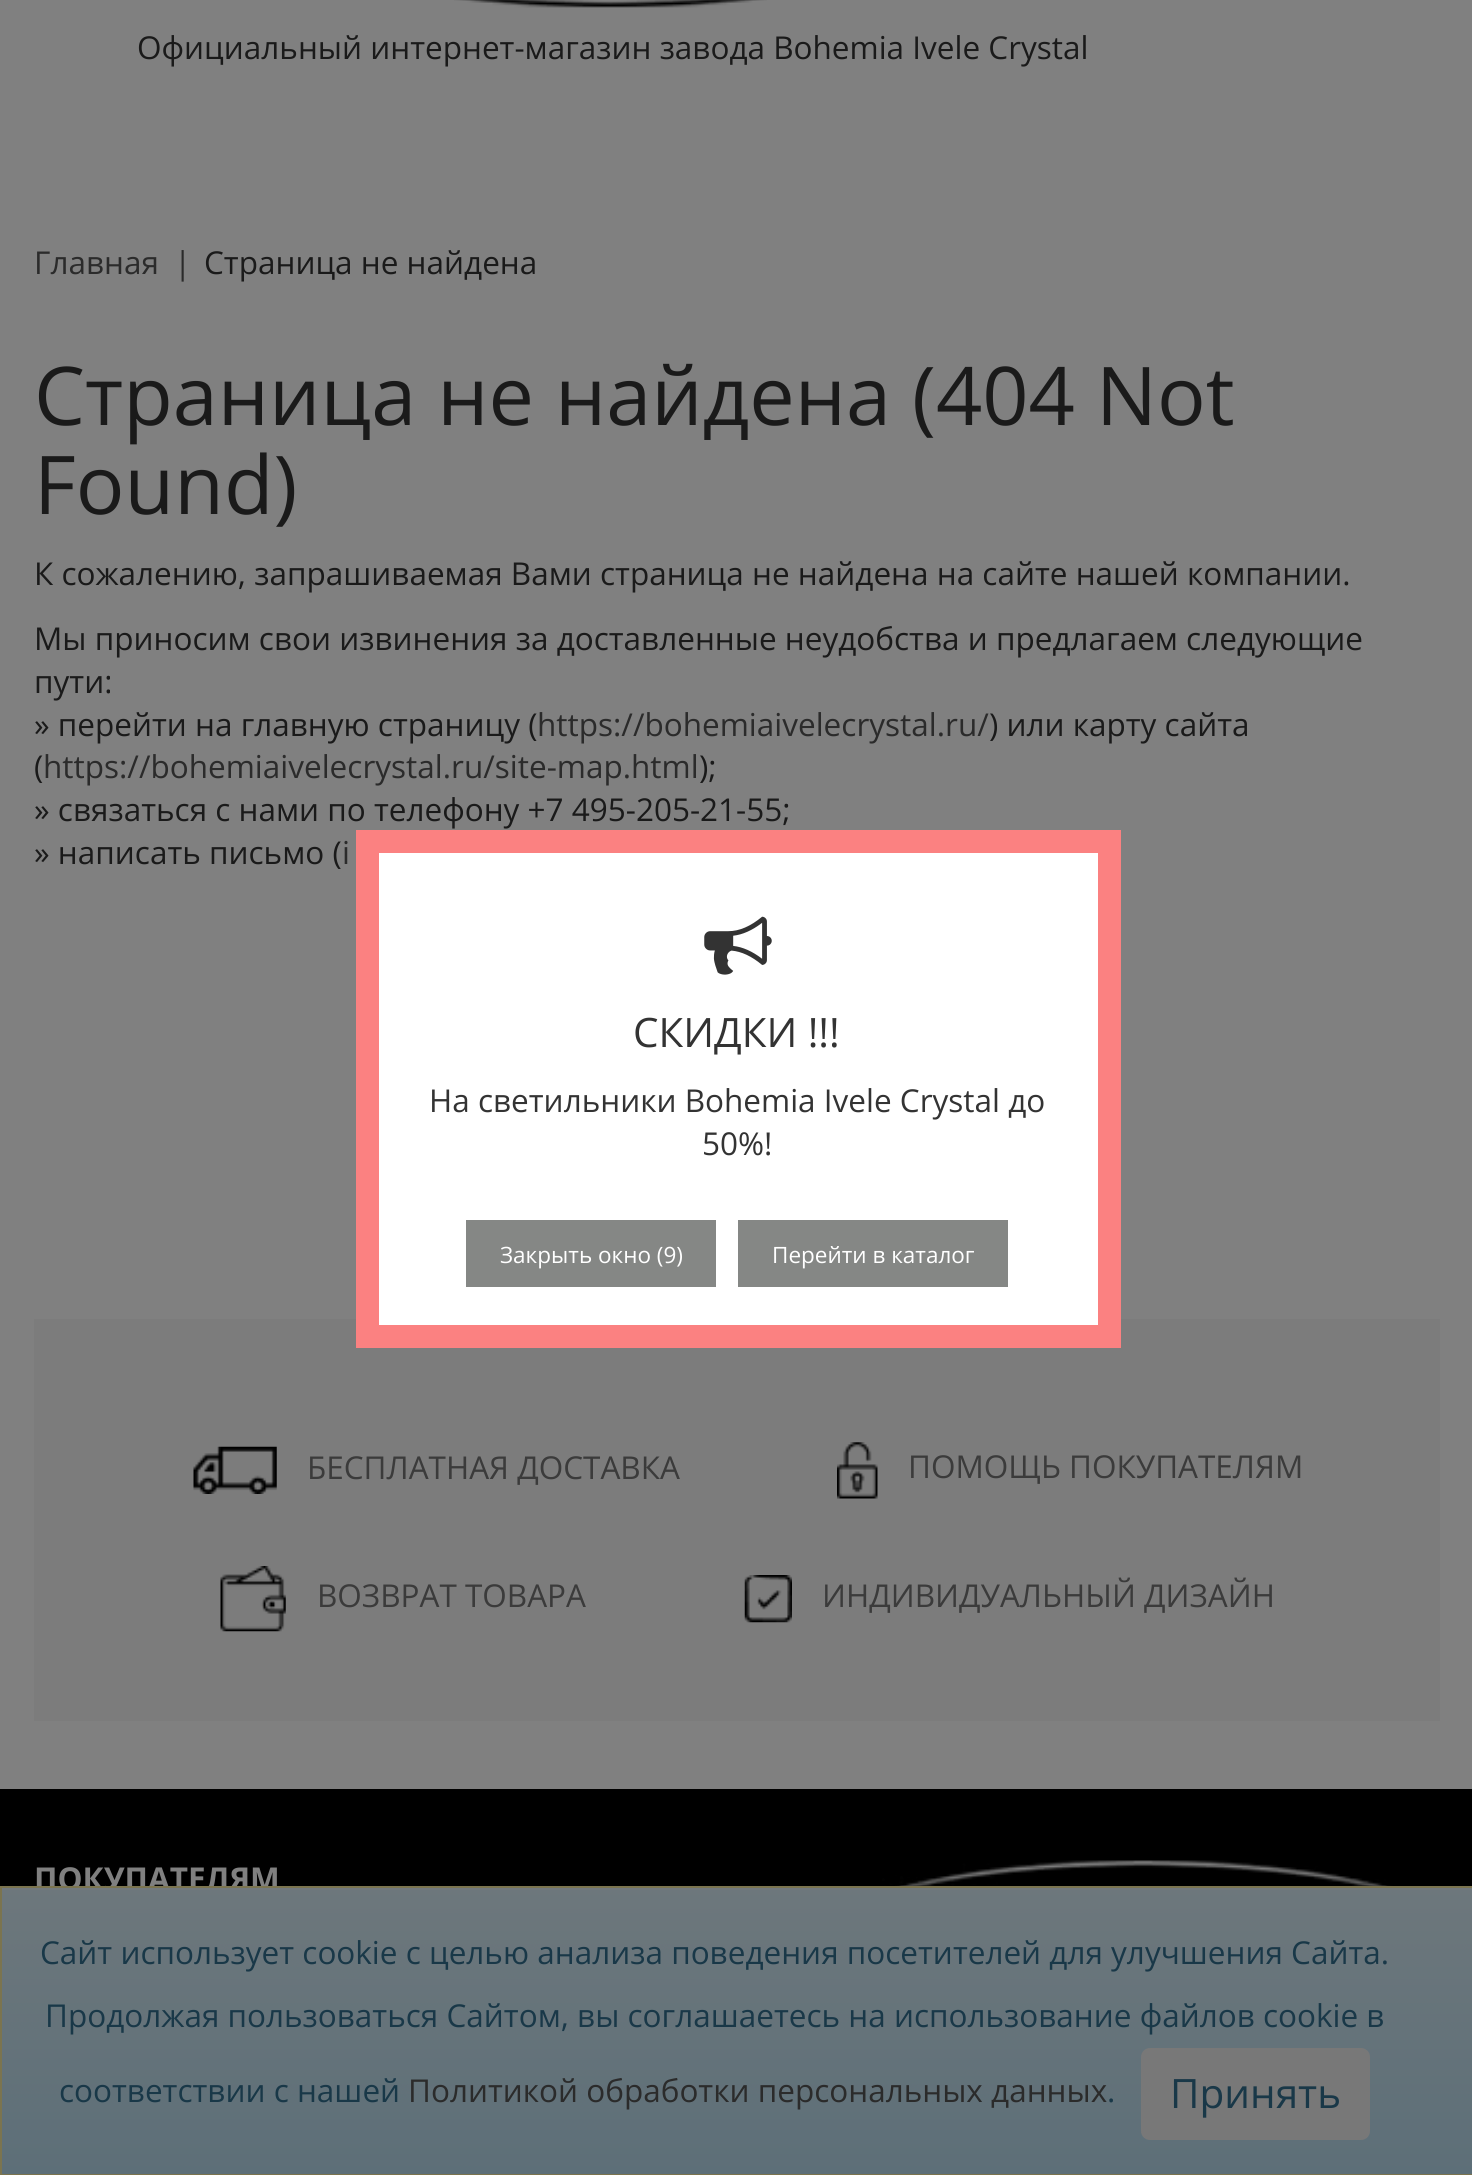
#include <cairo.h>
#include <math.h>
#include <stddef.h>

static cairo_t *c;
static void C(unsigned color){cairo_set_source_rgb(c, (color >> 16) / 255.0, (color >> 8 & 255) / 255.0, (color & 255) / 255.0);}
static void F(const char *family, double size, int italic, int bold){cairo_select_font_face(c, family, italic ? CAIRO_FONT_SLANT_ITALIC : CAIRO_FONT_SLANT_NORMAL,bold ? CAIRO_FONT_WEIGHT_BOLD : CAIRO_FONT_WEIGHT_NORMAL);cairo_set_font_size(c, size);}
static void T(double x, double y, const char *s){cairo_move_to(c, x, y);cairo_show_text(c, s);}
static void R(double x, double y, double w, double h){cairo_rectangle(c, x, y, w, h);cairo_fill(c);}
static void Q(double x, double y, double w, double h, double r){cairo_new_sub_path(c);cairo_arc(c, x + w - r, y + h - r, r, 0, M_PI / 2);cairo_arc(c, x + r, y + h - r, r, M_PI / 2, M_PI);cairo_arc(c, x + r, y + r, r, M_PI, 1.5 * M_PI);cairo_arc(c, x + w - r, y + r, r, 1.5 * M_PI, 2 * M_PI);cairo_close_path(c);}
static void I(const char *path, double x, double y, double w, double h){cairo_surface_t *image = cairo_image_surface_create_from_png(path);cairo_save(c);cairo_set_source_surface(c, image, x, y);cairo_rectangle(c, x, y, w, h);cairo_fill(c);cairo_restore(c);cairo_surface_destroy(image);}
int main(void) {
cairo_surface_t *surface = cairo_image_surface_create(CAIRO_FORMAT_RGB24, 1472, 2175);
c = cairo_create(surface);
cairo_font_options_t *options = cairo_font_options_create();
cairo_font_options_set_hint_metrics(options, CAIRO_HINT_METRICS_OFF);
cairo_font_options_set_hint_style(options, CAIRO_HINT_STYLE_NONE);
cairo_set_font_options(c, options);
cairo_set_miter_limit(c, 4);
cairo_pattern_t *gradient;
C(0x808080);
cairo_paint(c);
I("1.png",454,0,313,8);
F("Open Sans",31.5,0,0);
C(0x1a1a1a);
T(137,59,"Официальный интернет-магазин завода Bohemia Ivele Crystal");
C(0x2b2b2b);
T(34,274,"Главная");
T(174,274,"|");
C(0x1a1a1a);
T(204,274,"Страница не найдена");
F("Open Sans",81,0,0);
T(34,425,"Страница не найдена (404 Not");
T(34,514,"Found)");
F("Open Sans",31.5,0,0);
T(34,585,"К сожалению, запрашиваемая Вами страница не найдена на сайте нашей компании.");
T(34,650,"Мы приносим свои извинения за доставленные неудобства и предлагаем следующие");
T(34,693,"пути:");
T(34,736,"» перейти на главную страницу (");
C(0x2b2b2b);
T(537,736,"https://bohemiaivelecrystal.ru/");
C(0x1a1a1a);
T(989,736,") или карту сайта");
T(34,778,"(");
C(0x2b2b2b);
T(43,778,"https://bohemiaivelecrystal.ru/site-map.html");
C(0x1a1a1a);
T(699,778,");");
T(34,821,"» связаться с нами по телефону +7 495-205-21-55;");
T(34,864,"» написать письмо (");
C(0x2b2b2b);
T(342,864,"i");
C(0x7c7c7c);
R(34,1319,1406,402);
I("2.png",193,1446,84,48);
C(0x3b3b3b);
T(307,1479,"БЕСПЛАТНАЯ ДОСТАВКА");
I("3.png",837,1442,41,57);
T(908,1478,"ПОМОЩЬ ПОКУПАТЕЛЯМ");
I("4.png",220,1566,66,66);
T(317,1607,"ВОЗВРАТ ТОВАРА");
I("5.png",744,1575,48,48);
T(822,1607,"ИНДИВИДУАЛЬНЫЙ ДИЗАЙН");
C(0x000000);
R(0,1789,1472,97);
F("Open Sans",31.5,0,1);
C(0x808080);
T(34,1890,"ПОКУПАТЕЛЯМ");
I("6.png",846,1860,594,26);
C(0xffffff);
cairo_rectangle(c,367.5,841.5,742,495);
cairo_fill_preserve(c);
C(0xfb8181);
cairo_set_line_width(c,23);
cairo_stroke(c);
I("7.png",704,916,68,59);
F("Open Sans",40.5,0,0);
C(0x333333);
T(633,1047,"СКИДКИ !!!");
F("Open Sans",31.5,0,0);
T(429,1112,"На светильники Bohemia Ivele Crystal до");
T(702,1155,"50%!");
C(0x858785);
R(466,1220,250,67);
F("Open Sans",22.5,0,0);
C(0xffffff);
T(500,1263,"Закрыть окно (9)");
C(0x858785);
R(738,1220,270,67);
C(0xffffff);
T(772,1263,"Перейти в каталог");
gradient = cairo_pattern_create_linear(737,1888,737,2174);
cairo_pattern_add_color_stop_rgba(gradient,0,0.427,0.467,0.486,1);
cairo_pattern_add_color_stop_rgba(gradient,1,0.365,0.435,0.471,1);
cairo_set_source(c,gradient);
cairo_pattern_destroy(gradient);
R(2,1890,1470,284);
C(0x72797d);
R(2,1888,1470,2);
cairo_rectangle(c,1,1887,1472,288);
C(0x7b744f);
cairo_set_line_width(c,2);
cairo_stroke(c);
F("Open Sans",31.5,0,0);
C(0x193848);
T(40,1964,"Сайт использует cookie с целью анализа поведения посетителей для улучшения Сайта.");
T(45,2027,"Продолжая пользоваться Сайтом, вы соглашаетесь на использование файлов cookie в");
T(59,2102,"соответствии с нашей");
C(0x2b2b2b);
T(408,2102,"Политикой обработки персональных данных");
C(0x193848);
T(1107,2102,".");
C(0x787878);
Q(1141,2048,229,92,9);
cairo_fill(c);
F("Open Sans",40.5,0,0);
C(0x193848);
T(1170,2108,"Принять");
cairo_surface_write_to_png(surface, "o.png");
cairo_font_options_destroy(options);
cairo_destroy(c);
cairo_surface_destroy(surface);
return 0;
}
